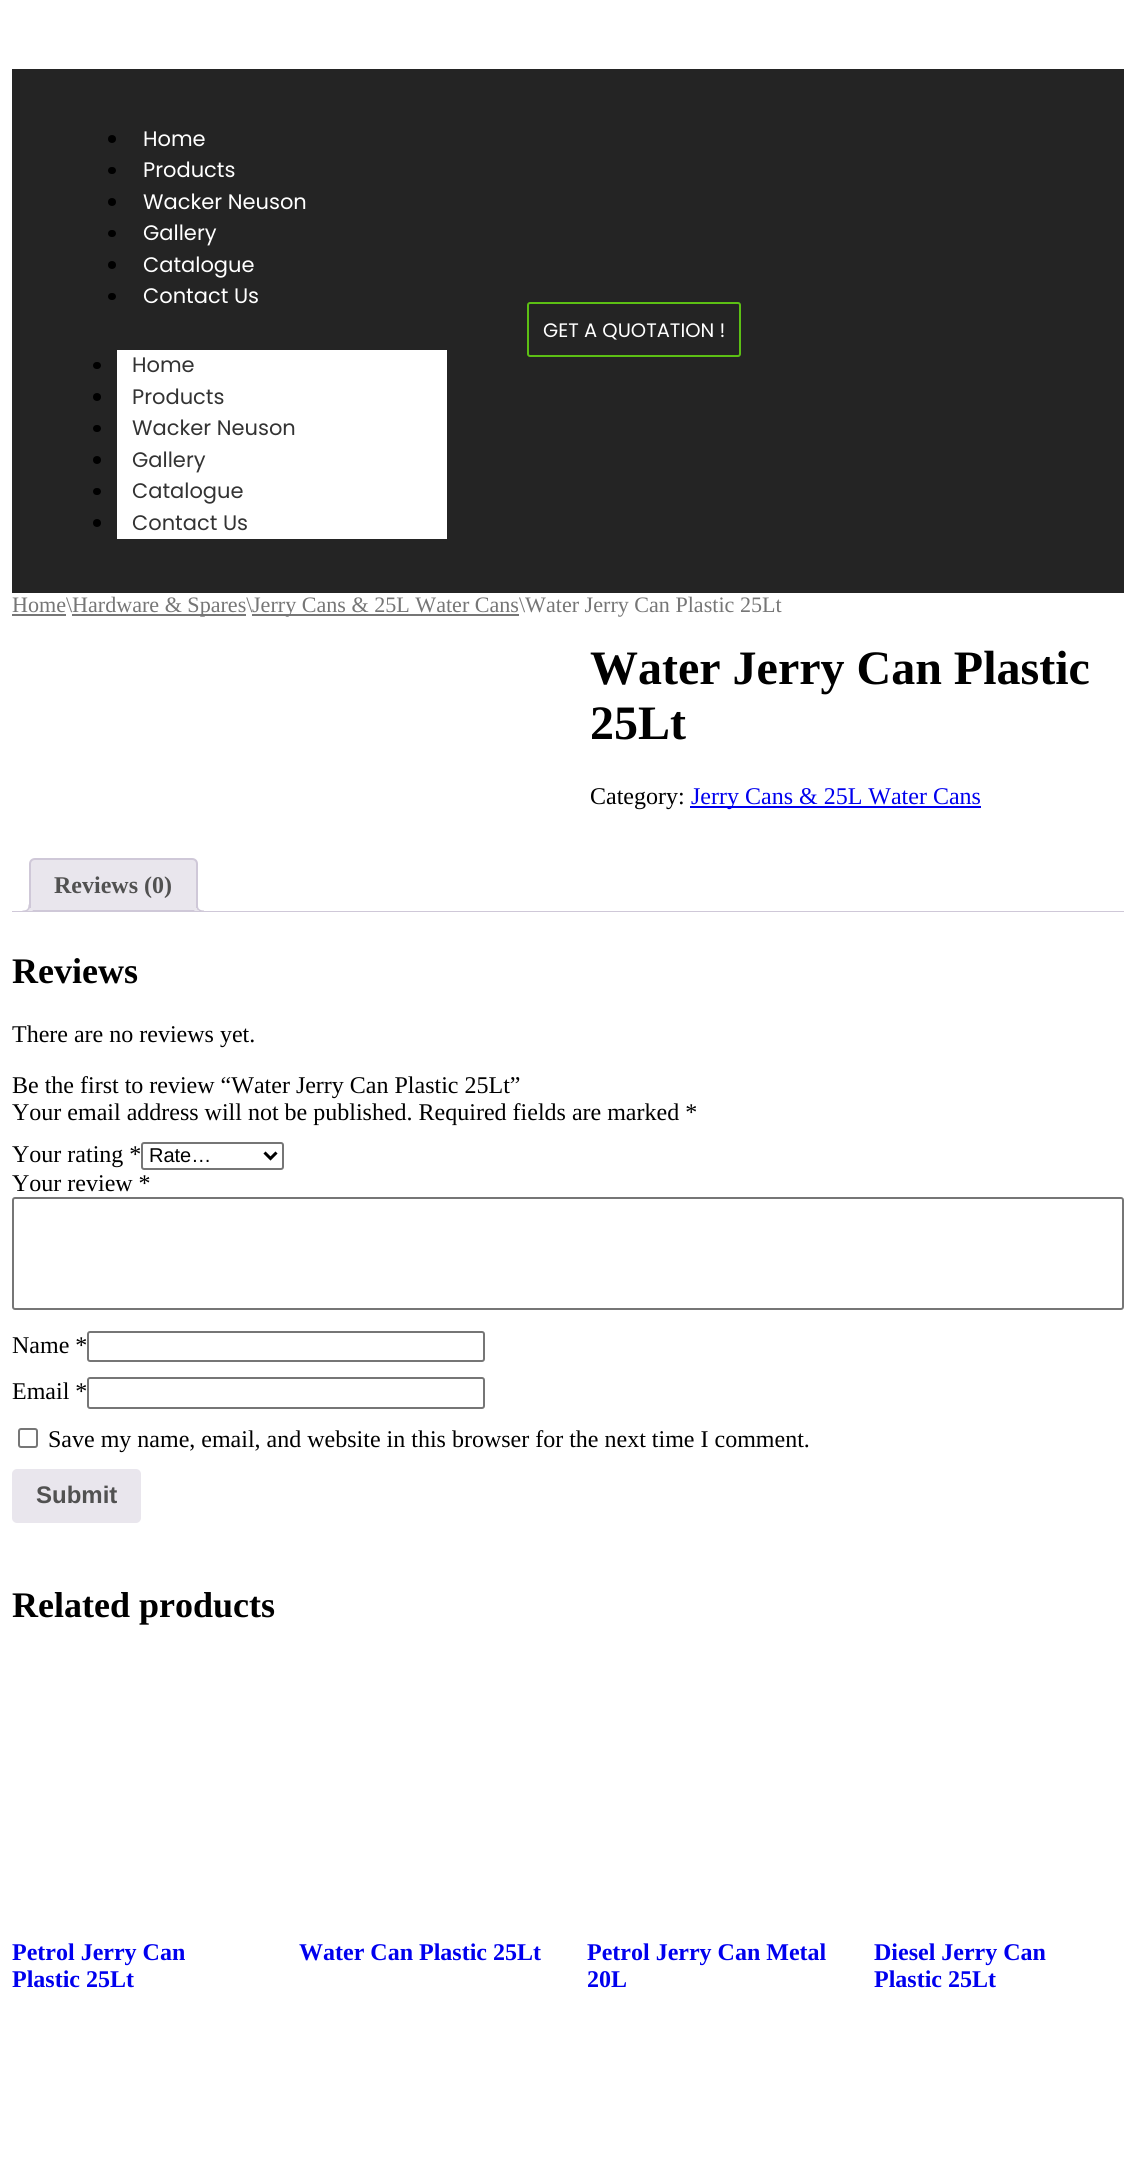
#include <cairo.h>
#include <math.h>
#include <stddef.h>

static cairo_t *c;
static void C(unsigned color){cairo_set_source_rgb(c, (color >> 16) / 255.0, (color >> 8 & 255) / 255.0, (color & 255) / 255.0);}
static void F(const char *family, double size, int italic, int bold){cairo_select_font_face(c, family, italic ? CAIRO_FONT_SLANT_ITALIC : CAIRO_FONT_SLANT_NORMAL,bold ? CAIRO_FONT_WEIGHT_BOLD : CAIRO_FONT_WEIGHT_NORMAL);cairo_set_font_size(c, size);}
static void T(double x, double y, const char *s){cairo_move_to(c, x, y);cairo_show_text(c, s);}
static void R(double x, double y, double w, double h){cairo_rectangle(c, x, y, w, h);cairo_fill(c);}
static void Q(double x, double y, double w, double h, double r){cairo_new_sub_path(c);cairo_arc(c, x + w - r, y + h - r, r, 0, M_PI / 2);cairo_arc(c, x + r, y + h - r, r, M_PI / 2, M_PI);cairo_arc(c, x + r, y + r, r, M_PI, 1.5 * M_PI);cairo_arc(c, x + w - r, y + r, r, 1.5 * M_PI, 2 * M_PI);cairo_close_path(c);}
int main(void) {
cairo_surface_t *surface = cairo_image_surface_create(CAIRO_FORMAT_RGB24, 1135, 2184);
c = cairo_create(surface);
cairo_font_options_t *options = cairo_font_options_create();
cairo_font_options_set_hint_metrics(options, CAIRO_HINT_METRICS_OFF);
cairo_font_options_set_hint_style(options, CAIRO_HINT_STYLE_NONE);
cairo_set_font_options(c, options);
cairo_set_miter_limit(c, 4);
C(0xffffff);
cairo_paint(c);
C(0x242424);
R(12,69,1112,524);
C(0x000000);
cairo_arc(c,112,139,4,0,2 * M_PI);
cairo_fill(c);
F("Poppins",21,0,0);
C(0xffffff);
T(143,146,"Home");
C(0x000000);
Q(108,167,8,7,3.5);
cairo_fill(c);
C(0xffffff);
T(143,177,"Products");
C(0x000000);
cairo_new_path(c);
cairo_arc(c,112,202,4,0,2 * M_PI);
cairo_fill(c);
C(0xffffff);
T(143,209,"Wacker Neuson");
C(0x000000);
Q(108,230,8,7,3.5);
cairo_fill(c);
C(0xffffff);
T(143,240,"Gallery");
C(0x000000);
cairo_new_path(c);
cairo_arc(c,112,265,4,0,2 * M_PI);
cairo_fill(c);
C(0xffffff);
T(143,272,"Catalogue");
C(0x000000);
Q(108,293,8,7,3.5);
cairo_fill(c);
C(0xffffff);
T(143,303,"Contact Us");
R(117,350,330,189);
C(0x000000);
Q(93,362,8,7,3.5);
cairo_fill(c);
C(0x333333);
T(132,372,"Home");
C(0x000000);
cairo_new_path(c);
cairo_arc(c,97,397,4,0,2 * M_PI);
cairo_fill(c);
C(0x333333);
T(132,404,"Products");
C(0x000000);
Q(93,425,8,7,3.5);
cairo_fill(c);
C(0x333333);
T(132,435,"Wacker Neuson");
C(0x000000);
cairo_new_path(c);
cairo_arc(c,97,460,4,0,2 * M_PI);
cairo_fill(c);
C(0x333333);
T(132,467,"Gallery");
C(0x000000);
Q(93,488,8,7,3.5);
cairo_fill(c);
C(0x333333);
T(132,498,"Catalogue");
C(0x000000);
cairo_new_path(c);
cairo_arc(c,97,523,4,0,2 * M_PI);
cairo_fill(c);
C(0x333333);
T(132,530,"Contact Us");
Q(528,303,212,53,2);
C(0x5cbf14);
cairo_stroke(c);
F("Poppins",19.5,0,0);
C(0xffffff);
T(543,337,"GET A QUOTATION !");
F("Liberation Serif",22.1,0,0);
C(0x767676);
T(12,612,"Home\\");
R(12,614,54,2);
R(72,614,174,2);
T(72,612,"Hardware & Spares\\");
R(252,614,267,2);
T(252,612,"Jerry Cans & 25L Water Cans\\Water Jerry Can Plastic 25Lt");
F("Liberation Serif",48,0,1);
C(0x000000);
T(590,684,"Water Jerry Can Plastic");
T(590,739,"25Lt");
F("Liberation Serif",24,0,0);
T(590,804,"Category:");
C(0x0000ee);
R(690,806,291,2);
T(691,804,"Jerry Cans & 25L Water Cans");
C(0xe9e6ed);
cairo_new_path(c);
cairo_move_to(c,35,859);
cairo_line_to(c,192,859);
cairo_curve_to(c,195,859,197,861,197,864);
cairo_line_to(c,197,911);
cairo_line_to(c,30,911);
cairo_line_to(c,30,864);
cairo_curve_to(c,30,861,32,859,35,859);
cairo_close_path(c);
cairo_fill_preserve(c);
C(0xcfc8d8);
cairo_stroke(c);
F("Liberation Serif",24,0,1);
C(0x515151);
T(54,893,"Reviews (0)");
cairo_save(c);
cairo_rectangle(c,12,858,1112,54);
cairo_clip(c);
C(0xe9e6ed);
cairo_new_path(c);
cairo_move_to(c,26,911.5);
cairo_line_to(c,26,915);
cairo_curve_to(c,30.5,915,33,912.5,33,908);
cairo_line_to(c,29.5,908);
cairo_curve_to(c,29,909.5,27.5,911,26,911.5);
cairo_close_path(c);
cairo_fill(c);
cairo_restore(c);
C(0xcfc8d8);
cairo_set_fill_rule(c,CAIRO_FILL_RULE_EVEN_ODD);
cairo_new_path(c);
cairo_move_to(c,22.5,904.5);
cairo_line_to(c,30,904.5);
cairo_curve_to(c,30,910,28,912,22.5,912);
cairo_close_path(c);
cairo_move_to(c,22.5,904.5);
cairo_line_to(c,28.5,904.5);
cairo_curve_to(c,28.5,909,27,910.5,22.5,910.5);
cairo_close_path(c);
cairo_fill(c);
cairo_save(c);
cairo_set_fill_rule(c,CAIRO_FILL_RULE_WINDING);
cairo_rectangle(c,12,858,1112,54);
cairo_clip(c);
C(0xe9e6ed);
cairo_new_path(c);
cairo_move_to(c,194,908);
cairo_curve_to(c,194,912.5,196.5,915,201,915);
cairo_line_to(c,201,912);
cairo_curve_to(c,199,911.5,197.5,910,197,908);
cairo_close_path(c);
cairo_fill(c);
cairo_restore(c);
cairo_new_path(c);
cairo_move_to(c,196.5,904.5);
cairo_line_to(c,204,904.5);
cairo_line_to(c,204,912);
cairo_curve_to(c,200,912,196.5,910.5,196.5,906);
cairo_close_path(c);
cairo_move_to(c,198,904.5);
cairo_line_to(c,204,904.5);
cairo_line_to(c,204,910.5);
cairo_curve_to(c,201,910.5,198,909.5,198,906);
cairo_close_path(c);
cairo_fill(c);
R(12,911,1112,1);
F("Liberation Serif",36,0,1);
C(0x000000);
T(12,983,"Reviews");
F("Liberation Serif",24,0,0);
T(12,1042,"There are no reviews yet.");
T(12,1093,"Be the first to review “Water Jerry Can Plastic 25Lt”");
T(12,1120,"Your email address will not be published. Required fields are marked *");
T(12,1162,"Your rating *");
Q(142,1143,141,26,2);
C(0x767676);
cairo_stroke(c);
cairo_new_path(c);
cairo_move_to(c,264.5,1152.5);
cairo_line_to(c,270.5,1158.5);
cairo_line_to(c,276.5,1152.5);
C(0x000000);
cairo_set_line_width(c,3);
cairo_stroke(c);
F("Liberation Sans",20,0,0);
T(149,1162,"Rate…");
F("Liberation Serif",24,0,0);
T(12,1191,"Your review *");
Q(13,1198,1110,111,2);
C(0x767676);
cairo_set_line_width(c,2);
cairo_stroke(c);
C(0x000000);
T(12,1353,"Name *");
Q(88,1332,396,29,2);
C(0x767676);
cairo_stroke(c);
C(0x000000);
T(12,1399,"Email *");
Q(88,1378,396,30,2);
C(0x767676);
cairo_stroke(c);
Q(19,1429,18,18,2);
cairo_stroke(c);
C(0x000000);
T(48,1447,"Save my name, email, and website in this browser for the next time I comment.");
C(0xe9e6ed);
Q(12,1469,129,54,5);
cairo_fill(c);
F("Liberation Sans",24,0,1);
C(0x515151);
T(36,1503,"Submit");
F("Liberation Serif",36,0,1);
C(0x000000);
T(12,1617,"Related products");
F("Liberation Serif",24,0,1);
C(0x0000ee);
T(12,1960,"Petrol Jerry Can");
T(12,1987,"Plastic 25Lt");
T(299,1960,"Water Can Plastic 25Lt");
T(587,1960,"Petrol Jerry Can Metal");
T(587,1987,"20L");
T(874,1960,"Diesel Jerry Can");
T(874,1987,"Plastic 25Lt");
cairo_surface_write_to_png(surface, "o.png");
cairo_font_options_destroy(options);
cairo_destroy(c);
cairo_surface_destroy(surface);
return 0;
}
